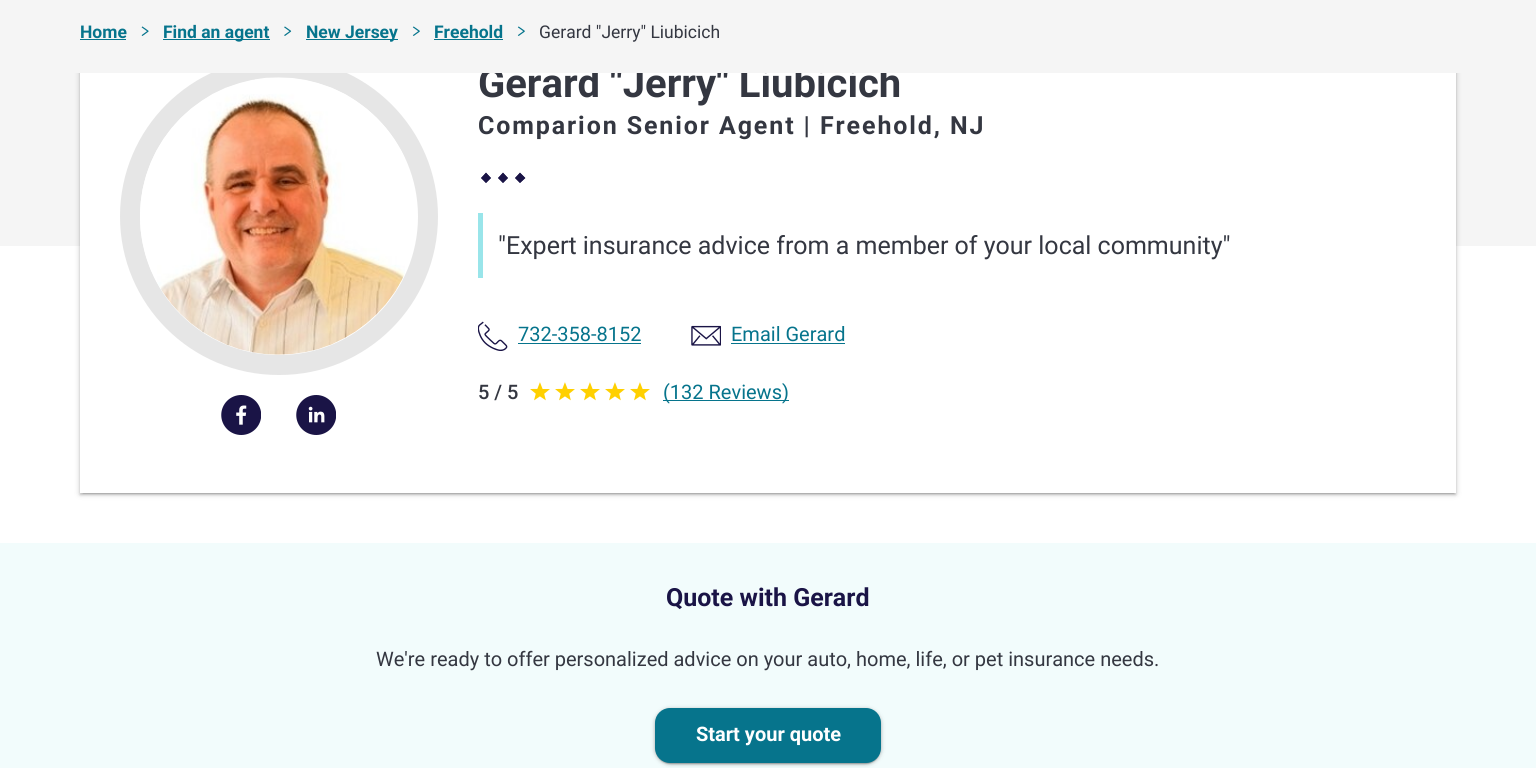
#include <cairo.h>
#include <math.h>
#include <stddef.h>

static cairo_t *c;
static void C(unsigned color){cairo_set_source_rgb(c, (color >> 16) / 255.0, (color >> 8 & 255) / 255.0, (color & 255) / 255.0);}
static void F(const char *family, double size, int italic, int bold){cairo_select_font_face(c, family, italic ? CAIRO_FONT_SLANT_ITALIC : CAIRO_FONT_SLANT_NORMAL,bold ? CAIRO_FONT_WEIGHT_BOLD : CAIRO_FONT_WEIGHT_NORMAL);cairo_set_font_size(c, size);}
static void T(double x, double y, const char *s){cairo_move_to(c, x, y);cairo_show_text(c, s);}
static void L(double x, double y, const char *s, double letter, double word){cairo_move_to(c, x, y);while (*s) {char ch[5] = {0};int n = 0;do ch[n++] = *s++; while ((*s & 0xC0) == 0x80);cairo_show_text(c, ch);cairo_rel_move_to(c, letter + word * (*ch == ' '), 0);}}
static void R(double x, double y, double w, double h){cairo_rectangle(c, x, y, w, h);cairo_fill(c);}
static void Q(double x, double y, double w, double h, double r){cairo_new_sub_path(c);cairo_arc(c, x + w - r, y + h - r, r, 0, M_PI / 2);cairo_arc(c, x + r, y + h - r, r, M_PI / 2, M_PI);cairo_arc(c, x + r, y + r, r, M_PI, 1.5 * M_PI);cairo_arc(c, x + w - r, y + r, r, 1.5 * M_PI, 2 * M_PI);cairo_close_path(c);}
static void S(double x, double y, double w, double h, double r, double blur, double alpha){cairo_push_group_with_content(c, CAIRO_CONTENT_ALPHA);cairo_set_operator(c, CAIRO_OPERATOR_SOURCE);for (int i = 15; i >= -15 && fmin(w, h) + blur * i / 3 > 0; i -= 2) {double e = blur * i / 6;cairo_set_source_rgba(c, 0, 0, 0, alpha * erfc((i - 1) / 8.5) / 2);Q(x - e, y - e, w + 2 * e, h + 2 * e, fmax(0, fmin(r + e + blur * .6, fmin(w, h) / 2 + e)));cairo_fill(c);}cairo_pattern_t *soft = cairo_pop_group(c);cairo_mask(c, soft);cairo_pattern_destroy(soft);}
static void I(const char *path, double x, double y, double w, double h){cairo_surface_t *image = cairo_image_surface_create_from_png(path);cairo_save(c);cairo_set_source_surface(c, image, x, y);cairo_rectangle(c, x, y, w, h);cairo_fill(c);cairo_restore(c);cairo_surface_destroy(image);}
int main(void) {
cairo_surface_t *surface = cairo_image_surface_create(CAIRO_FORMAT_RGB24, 1536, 768);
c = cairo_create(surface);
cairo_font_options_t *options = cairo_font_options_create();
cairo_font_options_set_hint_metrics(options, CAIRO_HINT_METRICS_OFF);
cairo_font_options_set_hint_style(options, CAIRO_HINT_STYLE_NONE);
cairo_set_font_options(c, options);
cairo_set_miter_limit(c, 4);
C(0xffffff);
cairo_paint(c);
C(0xf5f5f5);
R(0,73,1536,173);
C(0x000000);
S(80,3,1376,492,0,1,.14);
S(83,6,1371,488,0,.5,.12);
S(80,1,1376,493,0,3,.2);
C(0xffffff);
R(80,73,1376,420);
Q(130,68,298,297,148.5);
C(0xe6e6e6);
cairo_set_line_width(c,20);
cairo_stroke(c);
F("Roboto",40,0,1);
C(0x343741);
T(478,97,"Gerard \"Jerry\" Liubicich");
C(0xf5f5f5);
R(0,0,1536,73);
F("Roboto",17.5,0,1);
C(0x06748c);
T(80,38,"Home");
R(80,39,46,1);
I("1.png",141,26,8,10);
R(163,39,107,1);
T(163,38,"Find an agent");
I("2.png",284,26,8,10);
R(306,39,92,1);
T(306,38,"New Jersey");
I("3.png",412,26,8,10);
T(434,38,"Freehold");
R(434,39,69,1);
I("3.png",517,26,8,10);
F("Roboto",17.5,0,0);
C(0x343741);
T(539,38,"Gerard \"Jerry\" Liubicich");
I("4.png",140,77,265,278);
I("5.png",221,395,40,40);
I("6.png",296,395,40,40);
F("Roboto",25,0,1);
L(478,134,"Comparion Senior Agent | Freehold, NJ",1.9,0);
C(0x1a1446);
cairo_new_path(c);
cairo_move_to(c,486,173);
cairo_line_to(c,491,178);
cairo_line_to(c,486,183);
cairo_line_to(c,481,178);
cairo_close_path(c);
cairo_fill(c);
cairo_new_path(c);
cairo_move_to(c,486,173.5);
cairo_line_to(c,490,178);
cairo_line_to(c,486,182);
cairo_line_to(c,482,178);
cairo_close_path(c);
cairo_set_line_width(c,1.3);
cairo_stroke(c);
cairo_new_path(c);
cairo_move_to(c,503,173);
cairo_line_to(c,508,178);
cairo_line_to(c,503,183);
cairo_line_to(c,498,178);
cairo_close_path(c);
cairo_fill(c);
cairo_new_path(c);
cairo_move_to(c,503,173.5);
cairo_line_to(c,507,178);
cairo_line_to(c,503,182);
cairo_line_to(c,499,178);
cairo_close_path(c);
cairo_stroke(c);
cairo_new_path(c);
cairo_move_to(c,520,173);
cairo_line_to(c,525,178);
cairo_line_to(c,520,183);
cairo_line_to(c,515,178);
cairo_close_path(c);
cairo_fill(c);
cairo_new_path(c);
cairo_move_to(c,520,173.5);
cairo_line_to(c,524.5,178);
cairo_line_to(c,520,182);
cairo_line_to(c,516,178);
cairo_close_path(c);
cairo_stroke(c);
C(0x99e5ea);
R(478,213,5,65);
F("Roboto",25,0,0);
C(0x343741);
T(498,254,"\"Expert insurance advice from a member of your local community\"");
I("7.png",478,321,30,30);
F("Roboto",20,0,0);
C(0x06748c);
T(518,341,"732-358-8152");
R(518,343,123,1);
I("8.png",691,325,30,21);
T(731,341,"Email Gerard");
R(731,343,114,1);
F("Roboto Medium",20,0,0);
C(0x343741);
T(478,399,"5 / 5");
I("9.png",530,382,20,19);
I("9.png",555,382,20,19);
I("9.png",580,382,20,19);
I("9.png",605,382,20,19);
I("9.png",630,382,20,19);
C(0x06748c);
R(663,400,126,1);
F("Roboto",20,0,0);
T(663,399,"(132 Reviews)");
C(0xf2fcfc);
R(0,543,1536,225);
F("Roboto",25,0,1);
C(0x1a1446);
T(666,606,"Quote with Gerard");
F("Roboto",20,0,0);
C(0x343741);
T(376,666,"We're ready to offer personalized advice on your auto, home, life, or pet insurance needs.");
C(0x000000);
S(656,710,224,53,14,2.5,.48);
S(656,710,224,53,14,1,.08);
S(656,711,224,53,14,.5,.16);
C(0x06748c);
Q(655,708,226,55,15);
cairo_fill(c);
F("Roboto",20,0,1);
C(0xffffff);
T(696,741,"Start your quote");
cairo_surface_write_to_png(surface, "o.png");
cairo_font_options_destroy(options);
cairo_destroy(c);
cairo_surface_destroy(surface);
return 0;
}
